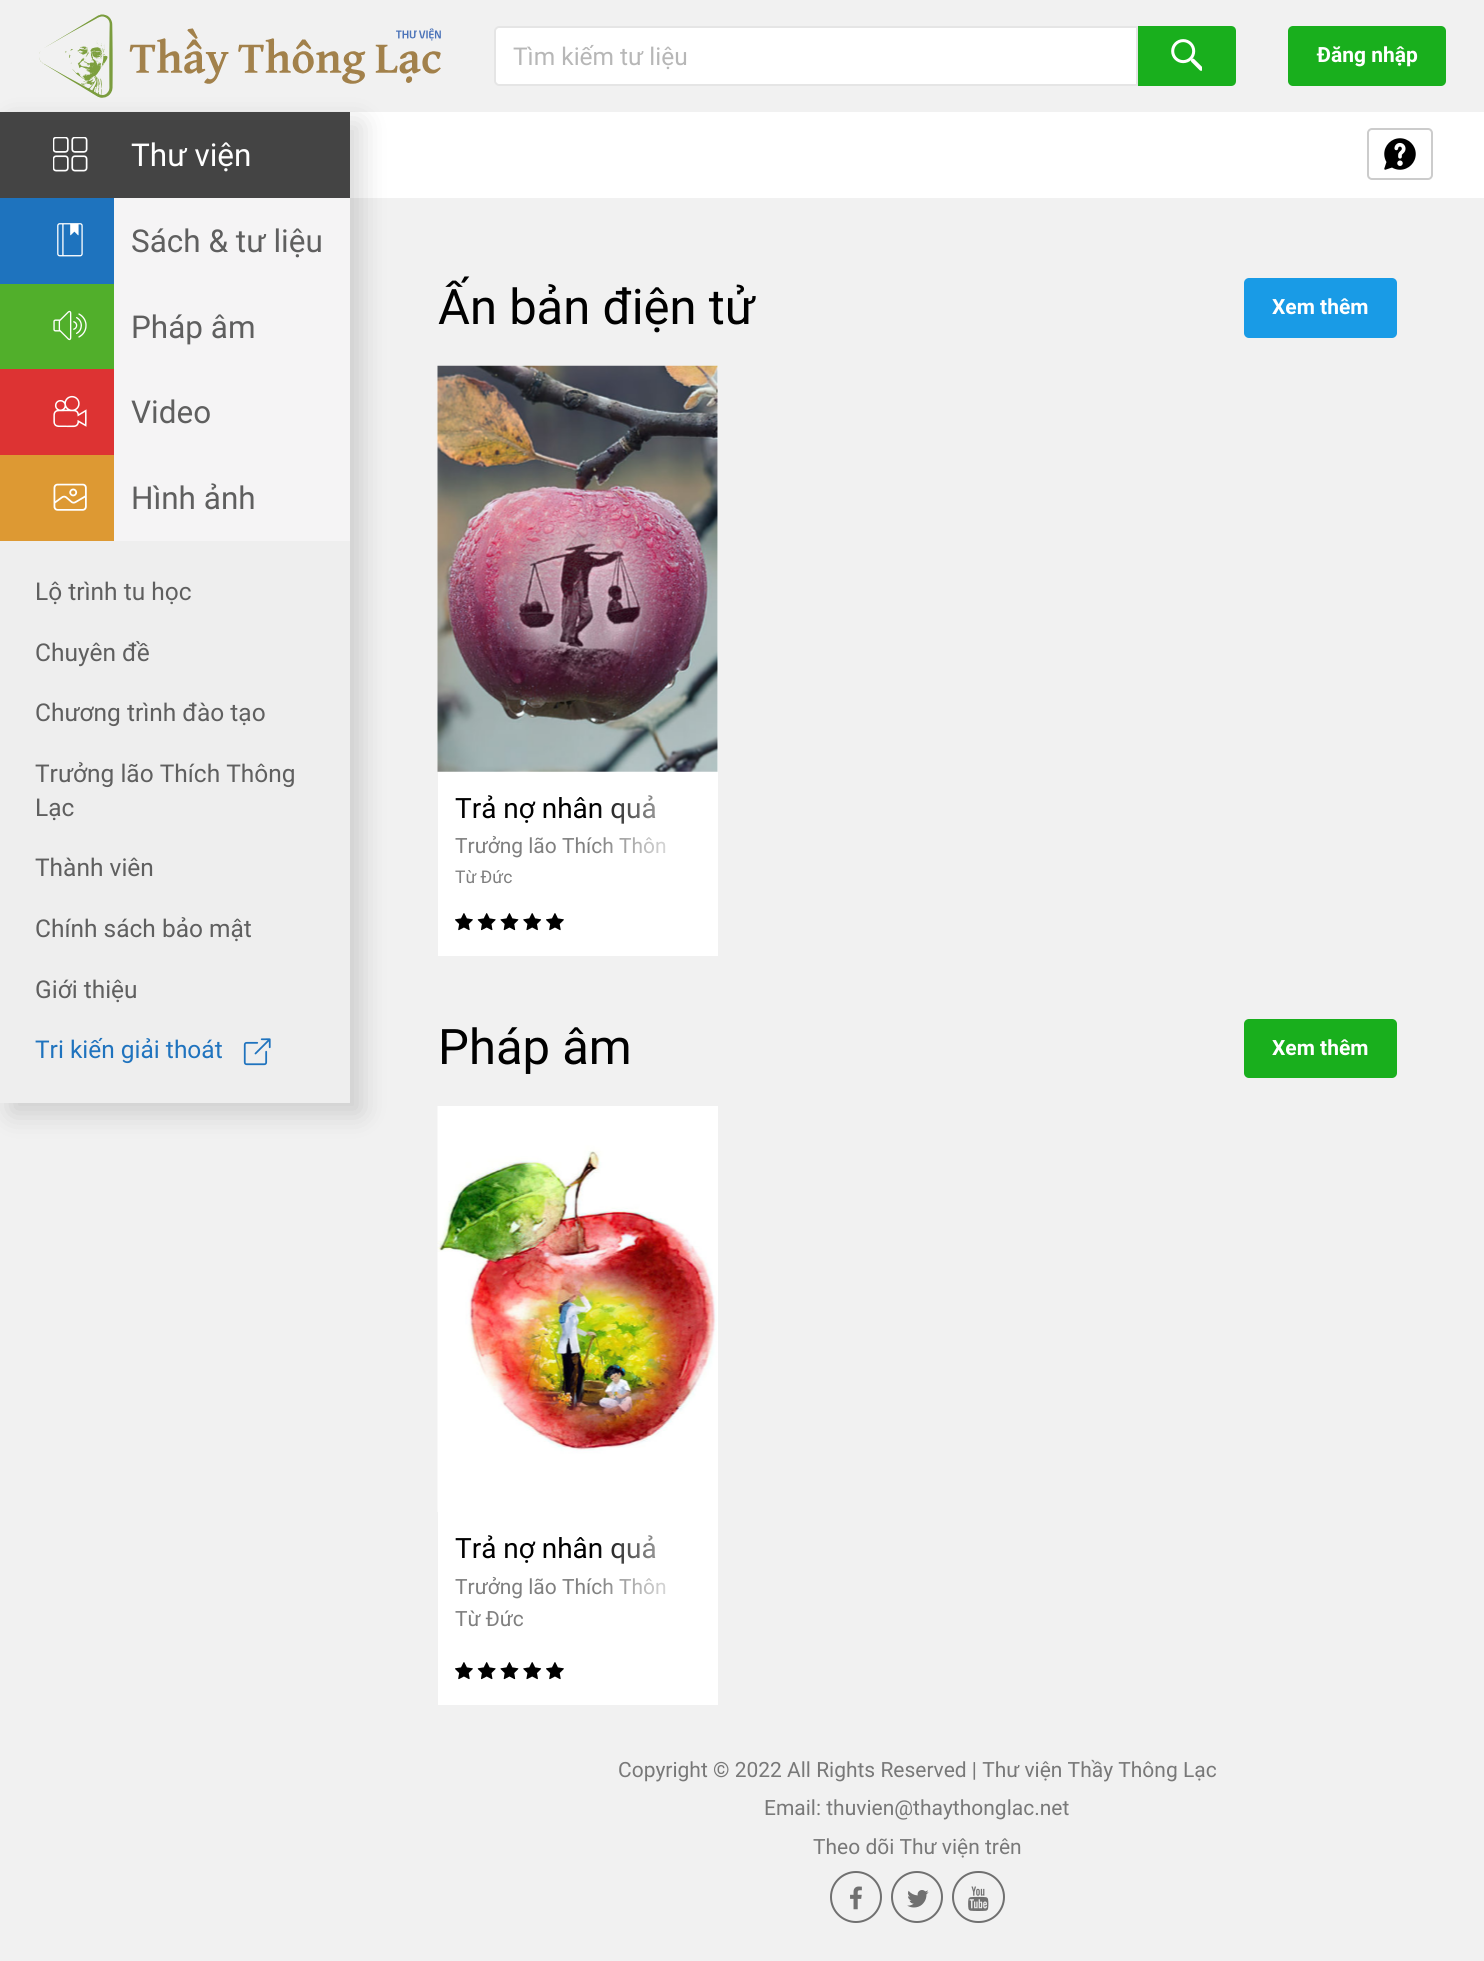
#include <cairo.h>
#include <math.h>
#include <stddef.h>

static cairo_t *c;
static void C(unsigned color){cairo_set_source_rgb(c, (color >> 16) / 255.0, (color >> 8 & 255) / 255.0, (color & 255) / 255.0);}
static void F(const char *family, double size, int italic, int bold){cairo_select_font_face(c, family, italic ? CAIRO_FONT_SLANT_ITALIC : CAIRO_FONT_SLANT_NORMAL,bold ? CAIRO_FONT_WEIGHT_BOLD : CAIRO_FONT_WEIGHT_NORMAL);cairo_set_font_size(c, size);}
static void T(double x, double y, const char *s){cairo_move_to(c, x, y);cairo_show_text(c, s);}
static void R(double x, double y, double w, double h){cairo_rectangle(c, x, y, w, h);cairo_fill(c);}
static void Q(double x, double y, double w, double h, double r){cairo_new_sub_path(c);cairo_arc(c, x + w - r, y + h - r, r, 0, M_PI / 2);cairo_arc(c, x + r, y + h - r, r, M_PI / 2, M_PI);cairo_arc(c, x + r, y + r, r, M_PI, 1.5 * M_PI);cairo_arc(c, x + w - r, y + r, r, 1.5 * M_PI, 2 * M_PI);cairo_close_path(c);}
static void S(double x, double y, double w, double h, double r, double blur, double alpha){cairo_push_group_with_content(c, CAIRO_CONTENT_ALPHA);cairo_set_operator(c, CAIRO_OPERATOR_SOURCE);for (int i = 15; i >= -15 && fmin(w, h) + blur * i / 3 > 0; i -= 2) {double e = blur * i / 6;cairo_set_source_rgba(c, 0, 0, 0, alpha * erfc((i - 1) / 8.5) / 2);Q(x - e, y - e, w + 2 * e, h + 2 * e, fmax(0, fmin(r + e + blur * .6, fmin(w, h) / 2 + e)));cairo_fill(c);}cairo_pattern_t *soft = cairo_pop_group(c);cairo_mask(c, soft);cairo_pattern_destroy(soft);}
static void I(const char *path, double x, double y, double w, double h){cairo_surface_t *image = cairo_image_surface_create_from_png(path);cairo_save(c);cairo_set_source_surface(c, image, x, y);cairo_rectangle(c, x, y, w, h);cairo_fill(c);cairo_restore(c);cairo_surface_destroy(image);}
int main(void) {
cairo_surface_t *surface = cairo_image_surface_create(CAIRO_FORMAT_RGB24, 1484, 1961);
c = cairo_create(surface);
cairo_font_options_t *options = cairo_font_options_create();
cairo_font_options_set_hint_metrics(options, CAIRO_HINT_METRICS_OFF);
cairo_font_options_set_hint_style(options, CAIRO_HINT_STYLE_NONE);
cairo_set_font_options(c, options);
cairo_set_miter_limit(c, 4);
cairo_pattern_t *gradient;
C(0xf1f1f1);
cairo_paint(c);
C(0xffffff);
R(350,112,1134,86);
C(0x000000);
S(11,123,350,990,0,14,.16);
I("1.png",39,14,402,84);
C(0xffffff);
cairo_new_path(c);
cairo_move_to(c,499,27);
cairo_line_to(c,1137,27);
cairo_line_to(c,1137,85);
cairo_line_to(c,499,85);
cairo_curve_to(c,497,85,495,83,495,81);
cairo_line_to(c,495,31);
cairo_curve_to(c,495,29,497,27,499,27);
cairo_close_path(c);
cairo_fill_preserve(c);
C(0xe5e5e5);
cairo_stroke(c);
F("Roboto",24.5,0,0);
C(0xb7b7b7);
T(513,65,"Tìm kiếm tư liệu");
C(0x19af1d);
cairo_new_path(c);
cairo_move_to(c,1138,26);
cairo_line_to(c,1231,26);
cairo_curve_to(c,1234,26,1236,28,1236,31);
cairo_line_to(c,1236,81);
cairo_curve_to(c,1236,84,1234,86,1231,86);
cairo_line_to(c,1138,86);
cairo_close_path(c);
cairo_fill(c);
I("2.png",1171,39,31,32);
Q(1288,26,158,60,5);
cairo_fill(c);
F("Roboto",21,0,1);
C(0xffffff);
T(1317,62,"Đăng nhập");
C(0xeeeeee);
R(0,541,350,562);
C(0x444444);
R(0,112,350,86);
I("3.png",53,137,35,35);
F("Roboto",31.5,0,0);
C(0xffffff);
T(131,166,"Thư viện");
C(0x1e73be);
R(0,198,114,86);
I("4.png",57,223,26,34);
C(0xf5f4f5);
R(114,198,236,343);
C(0x5f5f5f);
T(131,252,"Sách & tư liệu");
C(0x51af2b);
R(0,284,114,85);
I("5.png",53,310,34,31);
C(0x5f5f5f);
T(131,338,"Pháp âm");
C(0xdd3333);
R(0,369,114,86);
I("6.png",53,395,34,33);
C(0x5f5f5f);
T(131,423,"Video");
C(0xdd9933);
R(0,455,114,86);
I("7.png",53,483,34,28);
C(0x5f5f5f);
T(131,509,"Hình ảnh");
F("Roboto",24.5,0,0);
T(35,600,"Lộ trình tu học");
T(35,661,"Chuyên đề");
T(35,721,"Chương trình đào tạo");
T(35,782,"Trưởng lão Thích Thông");
T(35,816,"Lạc");
T(35,876,"Thành viên");
T(35,937,"Chính sách bảo mật");
T(35,998,"Giới thiệu");
C(0x1f73be);
T(35,1058,"Tri kiến giải thoát");
I("8.png",243,1038,28,28);
Q(1368,129,64,50,4);
C(0xcccccc);
cairo_stroke(c);
I("9.png",1384,138,32,32);
F("Roboto",49,0,0);
C(0x000000);
T(438,324,"Ấn bản điện tử");
C(0x199be6);
Q(1244,278,153,60,5);
cairo_fill(c);
F("Roboto",21,0,1);
C(0xffffff);
T(1272,314,"Xem thêm");
R(438,366,280,590);
I("10.png",437,365,281,407);
F("Roboto",28,0,0);
C(0x000000);
T(455,818,"Trả nợ nhân quả");
gradient = cairo_pattern_create_linear(595,809,700,809);
cairo_pattern_add_color_stop_rgba(gradient,0,1,1,1,0);
cairo_pattern_add_color_stop_rgba(gradient,1,1,1,1,1);
cairo_set_source(c,gradient);
cairo_pattern_destroy(gradient);
R(597,795,59,29);
F("Roboto",21,0,0);
C(0x7f7f7f);
T(455,853,"Trưởng lão Thích Thôn");
gradient = cairo_pattern_create_linear(595,847,700,847);
cairo_pattern_add_color_stop_rgba(gradient,0,1,1,1,0);
cairo_pattern_add_color_stop_rgba(gradient,1,1,1,1,1);
cairo_set_source(c,gradient);
cairo_pattern_destroy(gradient);
R(597,837,69,17);
F("Roboto",17.5,0,0);
C(0x7f7f7f);
T(455,883,"Từ Đức");
I("11.png",455,913,18,17);
I("12.png",477,913,19,17);
I("13.png",500,913,19,17);
I("14.png",523,913,18,17);
I("11.png",546,913,18,17);
I("15.png",455,913,18,18);
I("16.png",477,913,19,18);
I("17.png",500,913,19,18);
I("18.png",523,913,19,18);
I("15.png",546,913,18,18);
F("Roboto",49,0,0);
C(0x000000);
T(438,1064,"Pháp âm");
C(0x19af1d);
Q(1244,1019,153,59,5);
cairo_fill(c);
F("Roboto",21,0,1);
C(0xffffff);
T(1272,1055,"Xem thêm");
R(438,1106,280,599);
I("19.png",437,1106,281,406);
F("Roboto",28,0,0);
C(0x000000);
T(455,1558,"Trả nợ nhân quả");
gradient = cairo_pattern_create_linear(595,1550,700,1550);
cairo_pattern_add_color_stop_rgba(gradient,0,1,1,1,0);
cairo_pattern_add_color_stop_rgba(gradient,1,1,1,1,1);
cairo_set_source(c,gradient);
cairo_pattern_destroy(gradient);
R(597,1535,59,29);
F("Roboto",21,0,0);
C(0x7f7f7f);
T(455,1594,"Trưởng lão Thích Thôn");
gradient = cairo_pattern_create_linear(595,1587,700,1587);
cairo_pattern_add_color_stop_rgba(gradient,0,1,1,1,0);
cairo_pattern_add_color_stop_rgba(gradient,1,1,1,1,1);
cairo_set_source(c,gradient);
cairo_pattern_destroy(gradient);
R(597,1578,69,17);
C(0x7f7f7f);
T(455,1626,"Từ Đức");
I("11.png",455,1662,18,17);
I("12.png",477,1662,19,17);
I("13.png",500,1662,19,17);
I("14.png",523,1662,18,17);
I("11.png",546,1662,18,17);
I("15.png",455,1662,18,18);
I("16.png",477,1662,19,18);
I("17.png",500,1662,19,18);
I("18.png",523,1662,19,18);
I("15.png",546,1662,18,18);
C(0x787878);
T(618,1777,"Copyright © 2022 All Rights Reserved | Thư viện Thầy Thông Lạc");
T(764,1815,"Email: thuvien@thaythonglac.net");
T(813,1854,"Theo dõi Thư viện trên");
cairo_new_path(c);
cairo_arc(c,856,1897,25,0,2 * M_PI);
C(0x707070);
cairo_stroke(c);
I("20.png",850,1886,12,24);
cairo_arc(c,917,1897,25,0,2 * M_PI);
cairo_stroke(c);
I("21.png",907,1890,22,18);
Q(953,1872,51,50,25);
cairo_stroke(c);
I("22.png",968,1886,21,25);
cairo_surface_write_to_png(surface, "o.png");
cairo_font_options_destroy(options);
cairo_destroy(c);
cairo_surface_destroy(surface);
return 0;
}
